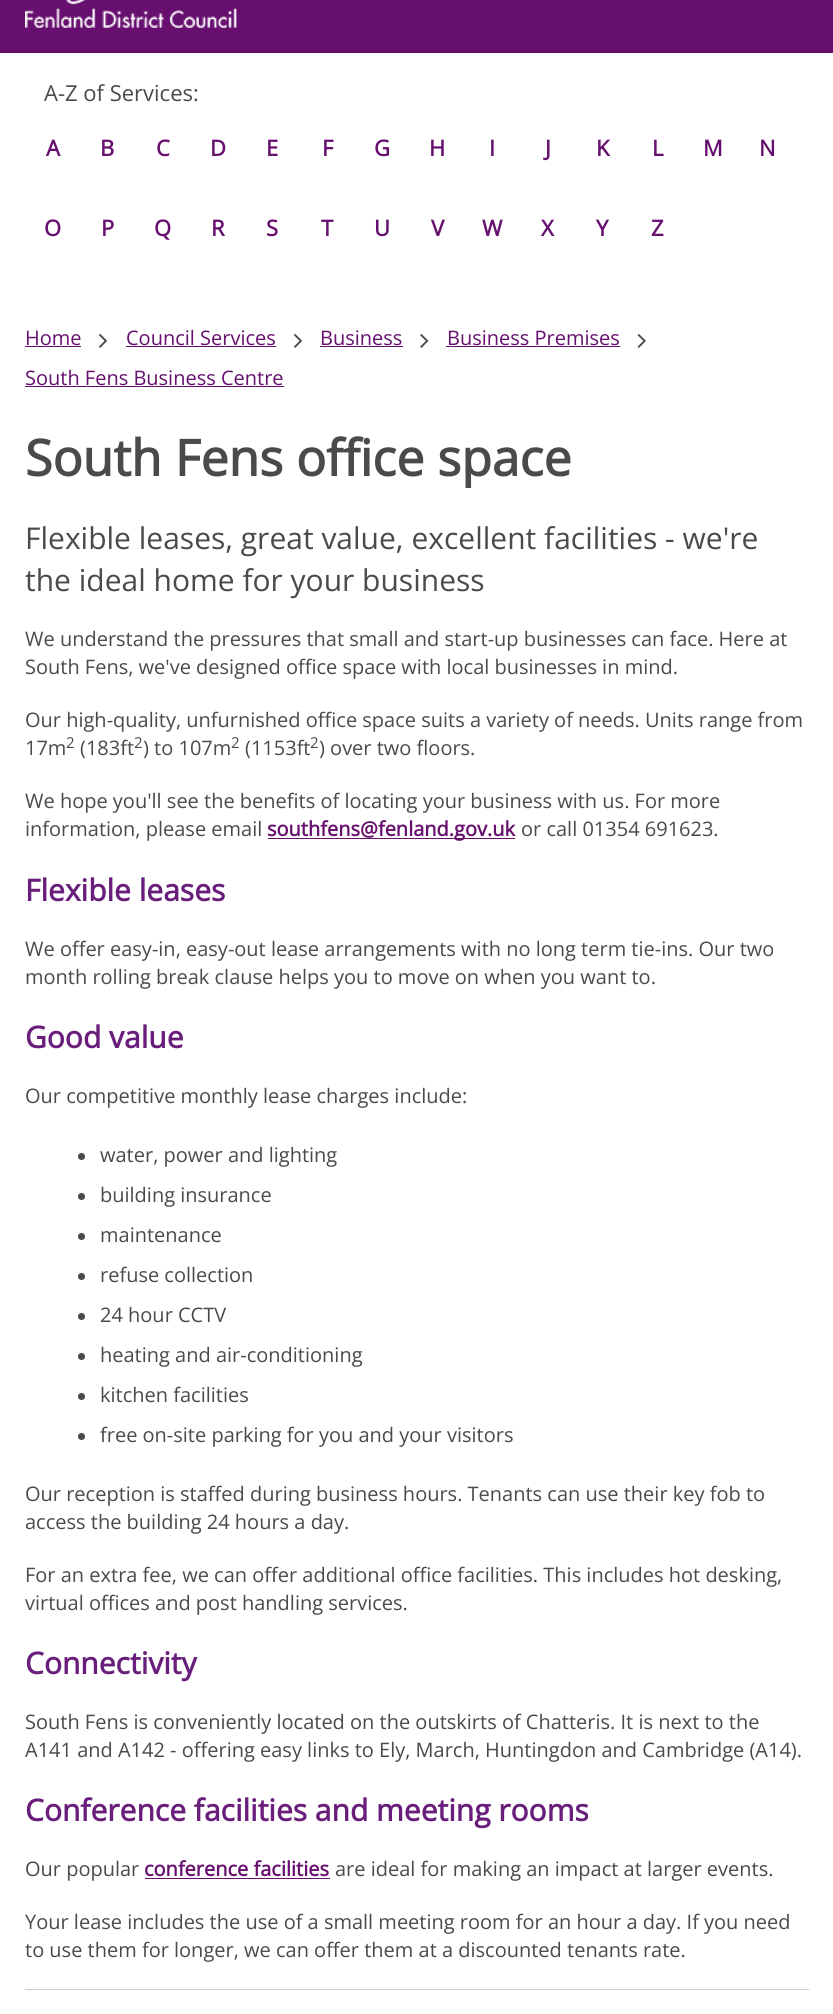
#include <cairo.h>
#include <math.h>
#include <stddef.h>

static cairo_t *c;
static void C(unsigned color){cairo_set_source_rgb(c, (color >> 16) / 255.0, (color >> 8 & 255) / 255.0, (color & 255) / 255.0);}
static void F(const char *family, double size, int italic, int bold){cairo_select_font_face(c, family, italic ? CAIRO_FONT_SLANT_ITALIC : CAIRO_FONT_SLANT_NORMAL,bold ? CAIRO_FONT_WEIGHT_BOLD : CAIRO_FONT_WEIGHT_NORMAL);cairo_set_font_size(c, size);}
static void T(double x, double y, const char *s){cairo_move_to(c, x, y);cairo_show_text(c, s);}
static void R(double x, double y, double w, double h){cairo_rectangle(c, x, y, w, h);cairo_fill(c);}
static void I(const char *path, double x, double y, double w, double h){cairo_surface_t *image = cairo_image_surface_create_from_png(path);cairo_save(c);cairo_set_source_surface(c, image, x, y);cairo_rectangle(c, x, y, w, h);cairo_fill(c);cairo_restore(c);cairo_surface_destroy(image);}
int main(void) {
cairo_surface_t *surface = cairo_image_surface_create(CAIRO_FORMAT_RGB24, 833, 2014);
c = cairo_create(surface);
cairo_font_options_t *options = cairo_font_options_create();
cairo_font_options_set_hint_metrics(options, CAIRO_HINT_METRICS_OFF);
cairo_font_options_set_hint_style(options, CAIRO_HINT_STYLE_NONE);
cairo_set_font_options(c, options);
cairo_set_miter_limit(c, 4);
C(0xffffff);
cairo_paint(c);
C(0x660f6e);
R(0,0,833,53);
I("1.png",25,0,212,28);
F("Open Sans",22,0,0);
C(0x4a4a4a);
T(44,101,"A-Z of Services:");
F("Open Sans",22,0,1);
C(0x660f6e);
T(46,156,"A");
T(100,156,"B");
T(156,156,"C");
T(210,156,"D");
T(266,156,"E");
T(322,156,"F");
T(374,156,"G");
T(429,156,"H");
T(489,156,"I");
T(545,156,"J");
T(596,156,"K");
T(652,156,"L");
T(703,156,"M");
T(759,156,"N");
T(44,236,"O");
T(101,236,"P");
T(154,236,"Q");
T(211,236,"R");
T(266,236,"S");
T(321,236,"T");
T(374,236,"U");
T(431,236,"V");
T(482,236,"W");
T(541,236,"X");
T(596,236,"Y");
T(651,236,"Z");
F("Open Sans",20,0,0);
T(25,345,"Home");
R(25,346,56,1);
I("2.png",99,334,8,14);
T(126,345,"Council Services");
R(126,346,150,1);
I("2.png",294,334,8,14);
T(320,345,"Business");
R(320,346,83,1);
I("3.png",420,334,9,14);
T(447,345,"Business Premises");
R(446,346,174,1);
I("4.png",637,334,9,14);
T(25,385,"South Fens Business Centre");
R(25,386,259,1);
F("Open Sans",50,0,1);
C(0x4a4a4a);
T(25,476,"South Fens office space");
F("Open Sans",30,0,0);
T(25,549,"Flexible leases, great value, excellent facilities - we're");
T(25,591,"the ideal home for your business");
F("Open Sans",20,0,0);
T(25,646,"We understand the pressures that small and start-up businesses can face. Here at");
T(25,674,"South Fens, we've designed office space with local businesses in mind.");
T(25,727,"Our high-quality, unfurnished office space suits a variety of needs. Units range from");
T(25,755,"17m");
F("Open Sans",15,0,0);
T(66,748,"2");
F("Open Sans",20,0,0);
T(80,755,"(183ft");
F("Open Sans",15,0,0);
T(134,748,"2");
F("Open Sans",20,0,0);
T(143,755,") to 107m");
F("Open Sans",15,0,0);
T(231,748,"2");
F("Open Sans",20,0,0);
T(245,755,"(1153ft");
F("Open Sans",15,0,0);
T(310,748,"2");
F("Open Sans",20,0,0);
T(319,755,") over two floors.");
T(25,808,"We hope you'll see the benefits of locating your business with us. For more");
T(25,836,"information, please email");
C(0x660f6e);
R(268,838,247,1);
F("Open Sans",20,0,1);
T(267,836,"southfens@fenland.gov.uk");
F("Open Sans",20,0,0);
C(0x4a4a4a);
T(521,836,"or call 01354 691623.");
F("Open Sans",30,0,1);
C(0x691e7b);
T(25,901,"Flexible leases");
F("Open Sans",20,0,0);
C(0x4a4a4a);
T(25,956,"We offer easy-in, easy-out lease arrangements with no long term tie-ins. Our two");
T(25,984,"month rolling break clause helps you to move on when you want to.");
F("Open Sans",30,0,1);
C(0x691e7b);
T(25,1048,"Good value");
F("Open Sans",20,0,0);
C(0x4a4a4a);
T(25,1103,"Our competitive monthly lease charges include:");
cairo_new_path(c);
cairo_arc(c,81.5,1156.5,3.5,0,2 * M_PI);
cairo_fill(c);
T(100,1162,"water, power and lighting");
cairo_new_path(c);
cairo_arc(c,81.5,1196.5,3.5,0,2 * M_PI);
cairo_fill(c);
T(100,1202,"building insurance");
cairo_new_path(c);
cairo_arc(c,81.5,1236.5,3.5,0,2 * M_PI);
cairo_fill(c);
T(100,1242,"maintenance");
cairo_new_path(c);
cairo_arc(c,81.5,1276.5,3.5,0,2 * M_PI);
cairo_fill(c);
T(100,1282,"refuse collection");
cairo_new_path(c);
cairo_arc(c,81.5,1316.5,3.5,0,2 * M_PI);
cairo_fill(c);
T(100,1322,"24 hour CCTV");
cairo_new_path(c);
cairo_arc(c,81.5,1356.5,3.5,0,2 * M_PI);
cairo_fill(c);
T(100,1362,"heating and air-conditioning");
cairo_new_path(c);
cairo_arc(c,81.5,1396.5,3.5,0,2 * M_PI);
cairo_fill(c);
T(100,1402,"kitchen facilities");
cairo_new_path(c);
cairo_arc(c,81.5,1436.5,3.5,0,2 * M_PI);
cairo_fill(c);
T(100,1442,"free on-site parking for you and your visitors");
T(25,1501,"Our reception is staffed during business hours. Tenants can use their key fob to");
T(25,1529,"access the building 24 hours a day.");
T(25,1582,"For an extra fee, we can offer additional office facilities. This includes hot desking,");
T(25,1610,"virtual offices and post handling services.");
F("Open Sans",30,0,1);
C(0x691e7b);
T(25,1674,"Connectivity");
F("Open Sans",20,0,0);
C(0x4a4a4a);
T(25,1729,"South Fens is conveniently located on the outskirts of Chatteris. It is next to the");
T(25,1757,"A141 and A142 - offering easy links to Ely, March, Huntingdon and Cambridge (A14).");
F("Open Sans",30,0,1);
C(0x691e7b);
T(25,1821,"Conference facilities and meeting rooms");
F("Open Sans",20,0,0);
C(0x4a4a4a);
T(25,1876,"Our popular");
F("Open Sans",20,0,1);
C(0x660f6e);
T(144,1876,"conference facilities");
R(145,1878,185,1);
F("Open Sans",20,0,0);
C(0x4a4a4a);
T(335,1876,"are ideal for making an impact at larger events.");
T(25,1929,"Your lease includes the use of a small meeting room for an hour a day. If you need");
T(25,1957,"to use them for longer, we can offer them at a discounted tenants rate.");
C(0xcccccc);
R(25,1989,784,1);
cairo_surface_write_to_png(surface, "o.png");
cairo_font_options_destroy(options);
cairo_destroy(c);
cairo_surface_destroy(surface);
return 0;
}
